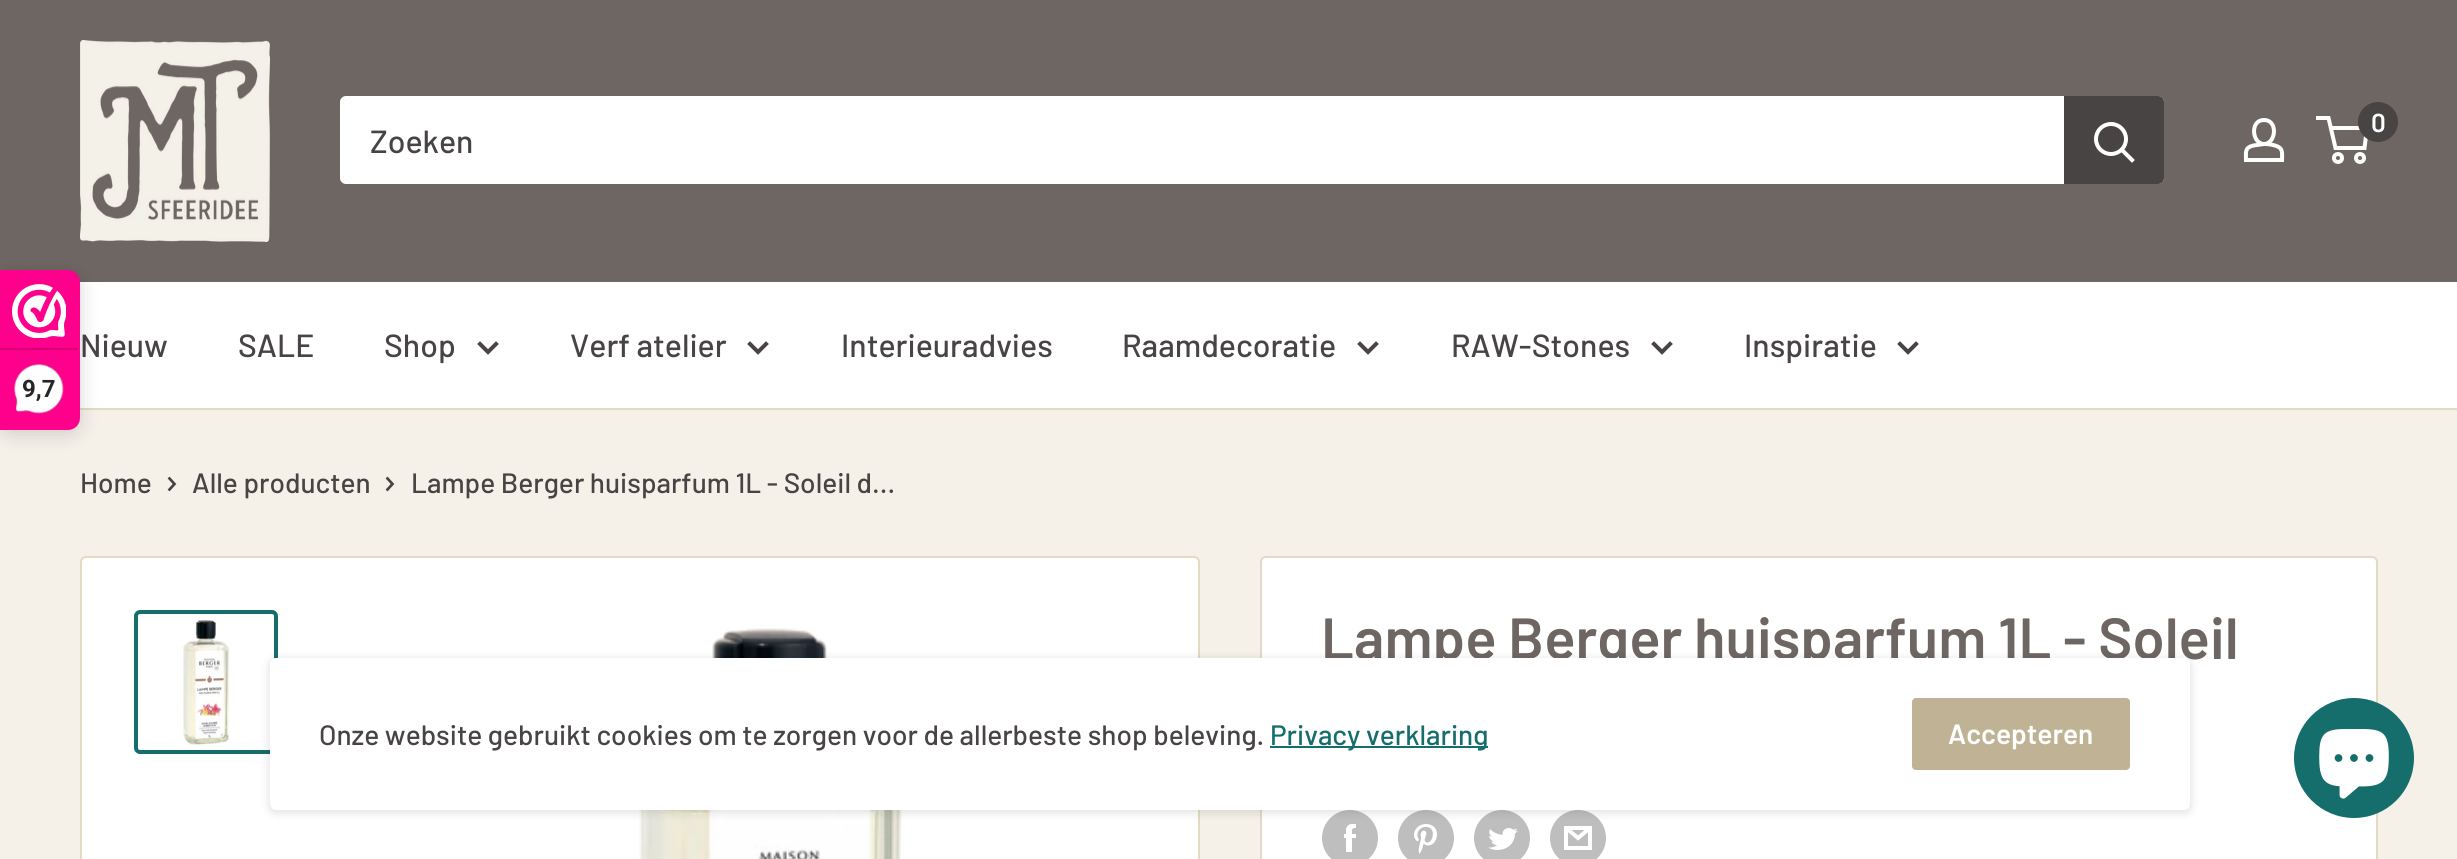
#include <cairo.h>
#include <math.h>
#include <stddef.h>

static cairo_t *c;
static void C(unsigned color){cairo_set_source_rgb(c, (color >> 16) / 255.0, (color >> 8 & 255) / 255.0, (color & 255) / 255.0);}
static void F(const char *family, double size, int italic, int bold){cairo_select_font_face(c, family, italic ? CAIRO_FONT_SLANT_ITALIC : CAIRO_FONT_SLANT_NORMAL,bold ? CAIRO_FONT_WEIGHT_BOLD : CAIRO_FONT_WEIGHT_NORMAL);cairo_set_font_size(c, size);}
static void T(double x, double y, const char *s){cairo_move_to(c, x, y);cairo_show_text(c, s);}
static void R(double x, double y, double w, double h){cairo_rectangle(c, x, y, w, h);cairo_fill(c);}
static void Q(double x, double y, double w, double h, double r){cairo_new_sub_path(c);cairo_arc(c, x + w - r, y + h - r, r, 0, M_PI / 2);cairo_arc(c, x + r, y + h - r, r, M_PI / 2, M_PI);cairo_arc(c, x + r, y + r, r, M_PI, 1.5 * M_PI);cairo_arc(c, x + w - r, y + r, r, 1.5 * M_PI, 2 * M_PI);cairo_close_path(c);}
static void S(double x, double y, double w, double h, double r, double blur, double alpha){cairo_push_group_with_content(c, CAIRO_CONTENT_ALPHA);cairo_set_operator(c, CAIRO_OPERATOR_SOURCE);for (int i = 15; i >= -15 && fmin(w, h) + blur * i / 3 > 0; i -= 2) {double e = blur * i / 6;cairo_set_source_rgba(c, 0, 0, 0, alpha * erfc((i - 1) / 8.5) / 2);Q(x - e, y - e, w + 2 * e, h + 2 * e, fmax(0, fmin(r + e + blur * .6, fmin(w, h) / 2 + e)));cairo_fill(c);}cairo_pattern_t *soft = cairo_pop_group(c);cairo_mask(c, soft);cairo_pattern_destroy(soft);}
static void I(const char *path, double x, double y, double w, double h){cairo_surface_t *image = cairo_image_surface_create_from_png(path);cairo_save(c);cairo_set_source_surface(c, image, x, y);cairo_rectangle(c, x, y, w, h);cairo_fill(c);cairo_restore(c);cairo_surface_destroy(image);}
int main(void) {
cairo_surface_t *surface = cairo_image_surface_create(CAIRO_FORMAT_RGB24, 2457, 859);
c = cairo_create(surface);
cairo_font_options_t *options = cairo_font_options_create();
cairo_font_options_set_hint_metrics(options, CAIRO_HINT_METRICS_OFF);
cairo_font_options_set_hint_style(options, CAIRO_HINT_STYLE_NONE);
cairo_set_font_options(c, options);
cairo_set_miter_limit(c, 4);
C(0xf5f1e9);
cairo_paint(c);
C(0x6e6662);
R(0,0,2457,282);
I("1.png",80,40,190,202);
cairo_new_path(c);
cairo_move_to(c,2264,144);
cairo_curve_to(c,2268,144,2271.5,144.5,2275,145.5);
cairo_curve_to(c,2283.5,148,2282,152.5,2282,160);
cairo_line_to(c,2246,160);
cairo_curve_to(c,2246,152,2244.5,147.5,2253.5,145.5);
cairo_close_path(c);
cairo_move_to(c,2264,144);
cairo_curve_to(c,2252,144,2249.5,120,2264,120);
cairo_curve_to(c,2278.5,120,2276,144,2264,144);
cairo_close_path(c);
C(0xffffff);
cairo_set_line_width(c,4);
cairo_stroke(c);
cairo_arc(c,2338,158,4,0,2 * M_PI);
cairo_stroke(c);
cairo_arc(c,2360,158,4,0,2 * M_PI);
cairo_stroke(c);
cairo_new_path(c);
cairo_move_to(c,2330.5,128);
cairo_line_to(c,2367,128);
cairo_line_to(c,2364.5,148);
cairo_line_to(c,2335.5,148);
cairo_line_to(c,2328.5,118);
cairo_line_to(c,2316,118);
cairo_stroke(c);
C(0x484444);
cairo_arc(c,2378,122,20,0,2 * M_PI);
cairo_fill(c);
F("Barlow SemiBold",26,0,0);
C(0xffffff);
T(2371,132,"0");
Q(340,96,1824,88,6);
cairo_fill(c);
F("Barlow Medium",32,0,0);
C(0x484444);
T(370,153,"Zoeken");
cairo_new_path(c);
cairo_move_to(c,2064,96);
cairo_line_to(c,2158,96);
cairo_curve_to(c,2161.5,96,2164,98.5,2164,102);
cairo_line_to(c,2164,178);
cairo_curve_to(c,2164,181.5,2161.5,184,2158,184);
cairo_line_to(c,2064,184);
cairo_close_path(c);
cairo_fill(c);
cairo_new_path(c);
cairo_move_to(c,2132,160);
cairo_line_to(c,2122,150);
C(0xffffff);
cairo_set_line_cap(c,CAIRO_LINE_CAP_SQUARE);
cairo_stroke(c);
cairo_arc(c,2111,139,15,0,2 * M_PI);
cairo_set_line_cap(c,CAIRO_LINE_CAP_BUTT);
cairo_stroke(c);
R(80,282,2377,126);
C(0xe4d9c3);
R(80,408,2377,2);
C(0x484444);
T(80,357,"Nieuw");
T(238,357,"SALE");
T(384,357,"Shop");
cairo_new_path(c);
cairo_move_to(c,496,344);
cairo_line_to(c,488,352);
cairo_line_to(c,480,344);
cairo_set_line_cap(c,CAIRO_LINE_CAP_SQUARE);
cairo_stroke(c);
T(570,357,"Verf atelier");
cairo_new_path(c);
cairo_move_to(c,766,344);
cairo_line_to(c,758,352);
cairo_line_to(c,750,344);
cairo_stroke(c);
T(841,357,"Interieuradvies");
T(1122,357,"Raamdecoratie");
cairo_new_path(c);
cairo_move_to(c,1376,344);
cairo_line_to(c,1368,352);
cairo_line_to(c,1360,344);
cairo_stroke(c);
T(1451,357,"RAW-Stones");
cairo_new_path(c);
cairo_move_to(c,1670,344);
cairo_line_to(c,1662,352);
cairo_line_to(c,1654,344);
cairo_stroke(c);
T(1744,357,"Inspiratie");
cairo_new_path(c);
cairo_move_to(c,1916,344);
cairo_line_to(c,1908,352);
cairo_line_to(c,1900,344);
cairo_stroke(c);
C(0x000000);
S(0,274,80,160,12,10,.15);
C(0xfe008c);
cairo_new_path(c);
cairo_move_to(c,0,270);
cairo_line_to(c,68,270);
cairo_curve_to(c,74.5,270,80,275.5,80,282);
cairo_line_to(c,80,418);
cairo_curve_to(c,80,424.5,74.5,430,68,430);
cairo_line_to(c,0,430);
cairo_close_path(c);
cairo_fill(c);
I("2.png",12,284,54,54);
C(0xd80077);
R(0,348,78,2);
I("3.png",14,364,50,50);
F("Roboto",24,0,1);
C(0x272626);
T(22,397,"9,7");
F("Barlow Medium",28,0,0);
C(0x484444);
T(80,493,"Home");
cairo_new_path(c);
cairo_move_to(c,169.5,478.5);
cairo_line_to(c,174.5,484);
cairo_line_to(c,169.5,489.5);
cairo_set_line_width(c,2.7);
cairo_stroke(c);
T(192,493,"Alle producten");
cairo_new_path(c);
cairo_move_to(c,387.5,478.5);
cairo_line_to(c,392.5,484);
cairo_line_to(c,387.5,489.5);
cairo_stroke(c);
T(411,493,"Lampe Berger huisparfum 1L - Soleil d...");
C(0xffffff);
Q(81,557,1118,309,5);
cairo_fill_preserve(c);
C(0xe4d9c3);
cairo_set_line_width(c,2);
cairo_set_line_cap(c,CAIRO_LINE_CAP_BUTT);
cairo_stroke(c);
Q(136,612,140,140,4);
C(0x166e6c);
cairo_set_line_width(c,4);
cairo_stroke(c);
I("4.png",183,620,47,125);
I("5.png",639,628,263,231);
C(0xffffff);
Q(1261,557,1116,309,5);
cairo_fill_preserve(c);
C(0xe4d9c3);
cairo_set_line_width(c,2);
cairo_stroke(c);
F("Barlow SemiBold",58,0,0);
C(0x6e6662);
T(1321,659,"Lampe Berger huisparfum 1L - Soleil");
I("6.png",1322,810,56,49);
I("7.png",1398,810,56,49);
I("8.png",1474,810,56,49);
I("9.png",1550,810,56,49);
C(0x000000);
S(268,658,1924,156,8,4,.1);
C(0xffffff);
Q(270,658,1920,152,6);
cairo_fill(c);
F("Barlow Medium",28,0,0);
C(0x484444);
T(319,745,"Onze website gebruikt cookies om te zorgen voor de allerbeste shop beleving.");
C(0x166e6c);
R(1270,746,218,2);
T(1270,745,"Privacy verklaring");
C(0xc0b294);
Q(1912,698,218,72,4);
cairo_fill(c);
F("Barlow SemiBold",28,0,0);
C(0xffffff);
T(1948,744,"Accepteren");
C(0x166e6c);
cairo_new_path(c);
cairo_arc(c,2354,758,60,0,2 * M_PI);
cairo_fill(c);
I("10.png",2319,729,70,70);
cairo_surface_write_to_png(surface, "o.png");
cairo_font_options_destroy(options);
cairo_destroy(c);
cairo_surface_destroy(surface);
return 0;
}
